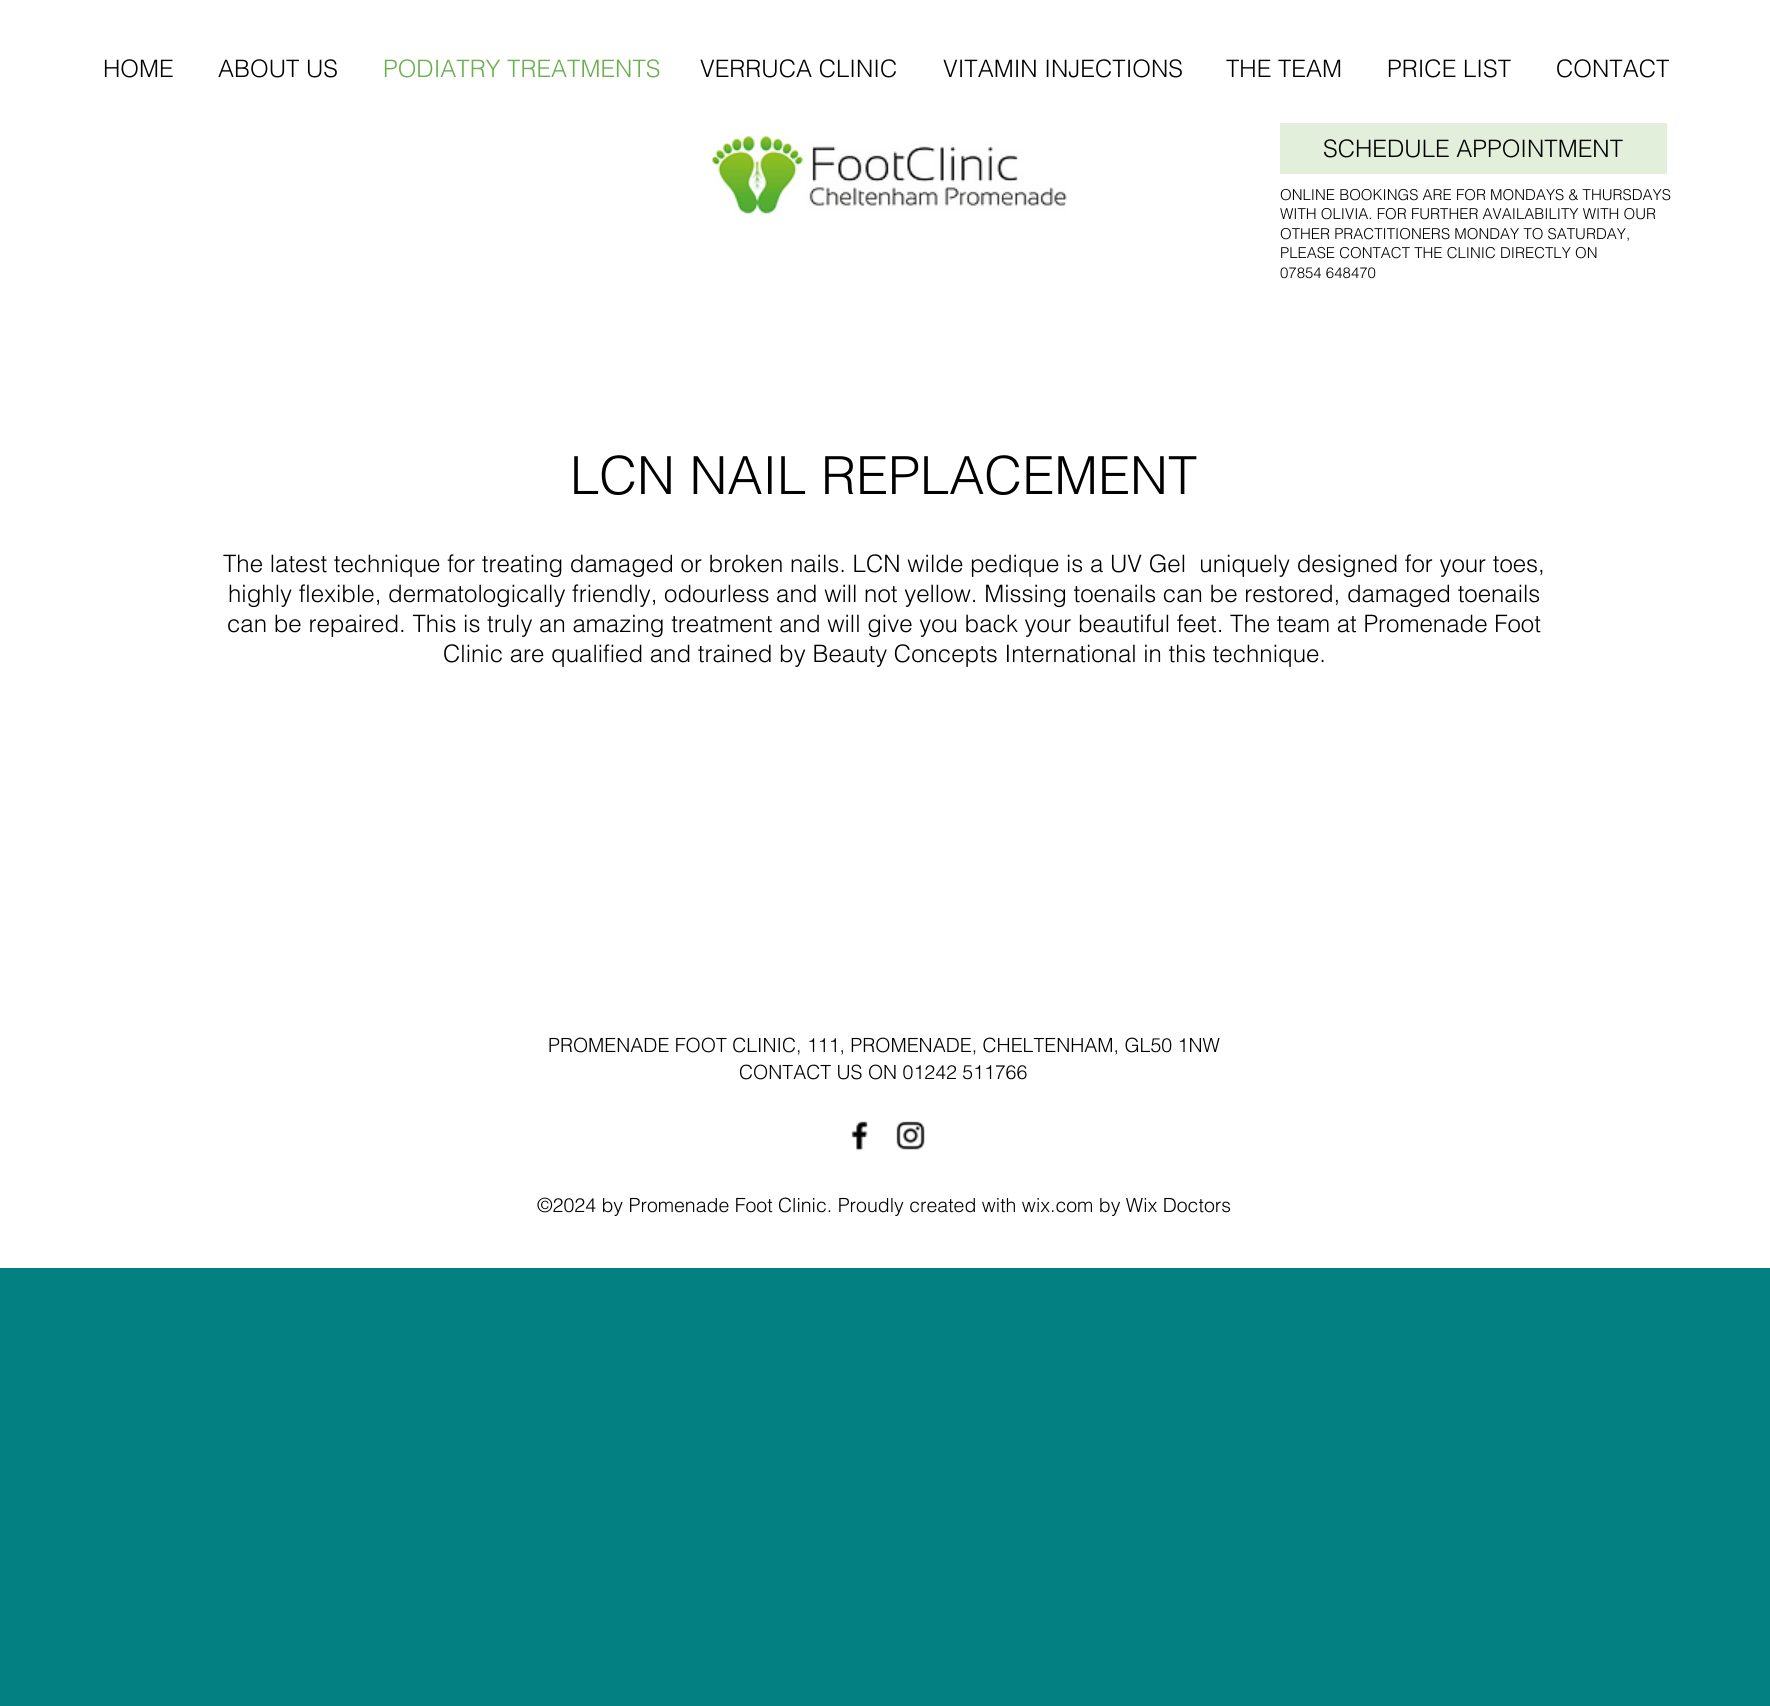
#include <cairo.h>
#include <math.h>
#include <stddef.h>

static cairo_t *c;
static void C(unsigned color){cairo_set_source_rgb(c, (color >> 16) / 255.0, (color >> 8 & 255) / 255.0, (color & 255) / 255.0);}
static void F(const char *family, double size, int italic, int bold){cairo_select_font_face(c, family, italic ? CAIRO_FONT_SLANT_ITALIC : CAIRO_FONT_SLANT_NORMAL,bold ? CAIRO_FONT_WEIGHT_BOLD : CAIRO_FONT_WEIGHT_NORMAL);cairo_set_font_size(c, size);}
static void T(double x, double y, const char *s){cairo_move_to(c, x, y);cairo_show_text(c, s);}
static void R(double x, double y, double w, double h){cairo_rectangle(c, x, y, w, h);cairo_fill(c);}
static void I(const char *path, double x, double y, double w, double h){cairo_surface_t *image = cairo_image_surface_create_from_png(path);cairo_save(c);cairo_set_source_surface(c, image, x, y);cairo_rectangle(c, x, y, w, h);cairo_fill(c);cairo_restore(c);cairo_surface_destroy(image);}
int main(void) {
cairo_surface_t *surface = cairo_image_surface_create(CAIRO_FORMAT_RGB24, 1770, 1706);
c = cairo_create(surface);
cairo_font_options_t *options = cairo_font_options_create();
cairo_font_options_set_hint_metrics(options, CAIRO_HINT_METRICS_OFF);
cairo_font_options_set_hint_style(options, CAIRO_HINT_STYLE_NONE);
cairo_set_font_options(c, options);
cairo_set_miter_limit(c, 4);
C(0x038081);
cairo_paint(c);
C(0xffffff);
R(0,0,1770,1268);
F("helvetica Light",24,0,0);
C(0x000000);
T(103,77,"HOME");
T(218,77,"ABOUT US");
C(0x68b04d);
T(383,77,"PODIATRY TREATMENTS");
C(0x000000);
T(700,77,"VERRUCA CLINIC");
T(943,77,"VITAMIN INJECTIONS");
T(1226,77,"THE TEAM");
T(1387,77,"PRICE LIST");
T(1556,77,"CONTACT");
I("1.png",711,135,356,80);
C(0xe1efdb);
R(1280,123,387,51);
C(0x000000);
T(1323,157,"SCHEDULE APPOINTMENT");
F("helvetica Light",15,0,0);
T(1280,200,"ONLINE BOOKINGS ARE FOR MONDAYS & THURSDAYS");
T(1280,219,"WITH OLIVIA. FOR FURTHER AVAILABILITY WITH OUR");
T(1280,239,"OTHER PRACTITIONERS MONDAY TO SATURDAY,");
T(1280,258,"PLEASE CONTACT THE CLINIC DIRECTLY ON");
T(1280,278,"07854 648470");
F("helvetica Light",52.5,0,0);
T(570,494,"LCN NAIL REPLACEMENT");
F("helvetica Light",24,0,0);
T(223,572,"The latest technique for treating damaged or broken nails. LCN wilde pedique is a UV Gel  uniquely designed for your toes,");
T(228,602,"highly flexible, dermatologically friendly, odourless and will not yellow. Missing toenails can be restored, damaged toenails");
T(227,632,"can be repaired. This is truly an amazing treatment and will give you back your beautiful feet. The team at Promenade Foot");
T(443,662,"Clinic are qualified and trained by Beauty Concepts International in this technique.");
F("helvetica Light",19.5,0,0);
T(548,1052,"PROMENADE FOOT CLINIC, 111, PROMENADE, CHELTENHAM, GL50 1NW");
T(739,1079,"CONTACT US ON 01242 511766");
I("2.png",851,1121,17,30);
I("3.png",896,1121,29,29);
T(537,1212,"©2024 by Promenade Foot Clinic. Proudly created with wix.com by Wix Doctors");
cairo_surface_write_to_png(surface, "o.png");
cairo_font_options_destroy(options);
cairo_destroy(c);
cairo_surface_destroy(surface);
return 0;
}
